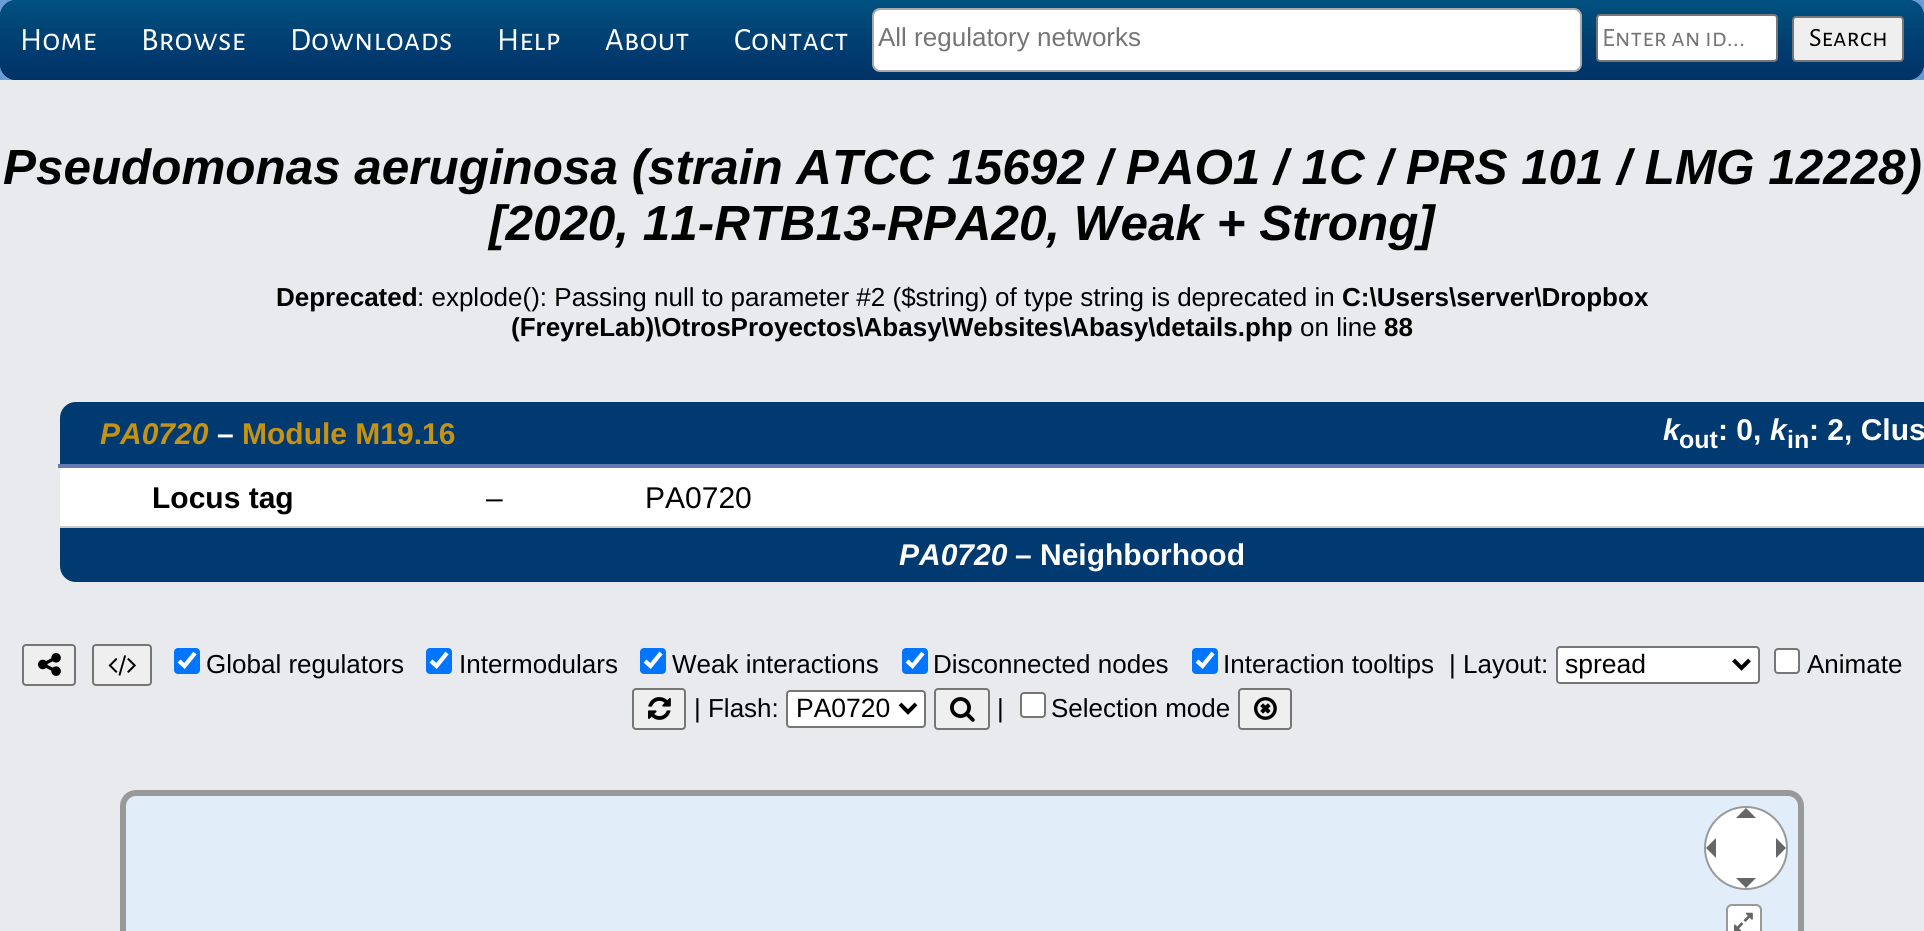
#include <cairo.h>
#include <math.h>
#include <stddef.h>

static cairo_t *c;
static void C(unsigned color){cairo_set_source_rgb(c, (color >> 16) / 255.0, (color >> 8 & 255) / 255.0, (color & 255) / 255.0);}
static void F(const char *family, double size, int italic, int bold){cairo_select_font_face(c, family, italic ? CAIRO_FONT_SLANT_ITALIC : CAIRO_FONT_SLANT_NORMAL,bold ? CAIRO_FONT_WEIGHT_BOLD : CAIRO_FONT_WEIGHT_NORMAL);cairo_set_font_size(c, size);}
static void T(double x, double y, const char *s){cairo_move_to(c, x, y);cairo_show_text(c, s);}
static void R(double x, double y, double w, double h){cairo_rectangle(c, x, y, w, h);cairo_fill(c);}
static void Q(double x, double y, double w, double h, double r){cairo_new_sub_path(c);cairo_arc(c, x + w - r, y + h - r, r, 0, M_PI / 2);cairo_arc(c, x + r, y + h - r, r, M_PI / 2, M_PI);cairo_arc(c, x + r, y + r, r, M_PI, 1.5 * M_PI);cairo_arc(c, x + w - r, y + r, r, 1.5 * M_PI, 2 * M_PI);cairo_close_path(c);}
static void I(const char *path, double x, double y, double w, double h){cairo_surface_t *image = cairo_image_surface_create_from_png(path);cairo_save(c);cairo_set_source_surface(c, image, x, y);cairo_rectangle(c, x, y, w, h);cairo_fill(c);cairo_restore(c);cairo_surface_destroy(image);}
int main(void) {
cairo_surface_t *surface = cairo_image_surface_create(CAIRO_FORMAT_RGB24, 1924, 931);
c = cairo_create(surface);
cairo_font_options_t *options = cairo_font_options_create();
cairo_font_options_set_hint_metrics(options, CAIRO_HINT_METRICS_OFF);
cairo_font_options_set_hint_style(options, CAIRO_HINT_STYLE_NONE);
cairo_set_font_options(c, options);
cairo_set_miter_limit(c, 4);
C(0xe9eaed);
cairo_paint(c);
I("1.png",0,0,1924,80);
C(0x003a70);
Q(0,0,1924,80,16);
cairo_fill(c);
I("2.png",0,0,1924,80);
F("Alegreya Sans SC",32.5,0,0);
C(0xffffff);
T(20,50,"Home");
T(141,50,"Browse");
T(290,50,"Downloads");
T(497,50,"Help");
T(605,50,"About");
T(734,50,"Contact");
Q(873,9,708,62,7);
cairo_fill_preserve(c);
C(0xaaaaaa);
cairo_stroke(c);
F("Liberation Sans",26,0,0);
C(0x757575);
T(878,46,"All regulatory networks");
C(0xffffff);
Q(1597,15,180,46,3);
cairo_fill_preserve(c);
C(0x767676);
cairo_stroke(c);
F("Alegreya Sans SC",26.5,0,0);
C(0x757575);
T(1602,46,"Enter an id...");
C(0xefefef);
Q(1793,17,110,44,3);
cairo_fill_preserve(c);
C(0x767676);
cairo_stroke(c);
C(0x000000);
T(1809,46,"Search");
F("Liberation Sans",49.4,1,1);
T(3,184,"Pseudomonas aeruginosa (strain ATCC 15692 / PAO1 / 1C / PRS 101 / LMG 12228)");
T(489,240,"[2020, 11-RTB13-RPA20, Weak + Strong]");
F("Liberation Sans",26,0,1);
T(276,306,"Deprecated");
F("Liberation Sans",26,0,0);
T(417,306,": explode(): Passing null to parameter #2 ($string) of type string is deprecated in");
F("Liberation Sans",26,0,1);
T(1342,306,"C:\\Users\\server\\Dropbox");
T(511,336,"(FreyreLab)\\OtrosProyectos\\Abasy\\Websites\\Abasy\\details.php");
F("Liberation Sans",26,0,0);
T(1300,336,"on line");
F("Liberation Sans",26,0,1);
T(1384,336,"88");
C(0xffffff);
Q(60,402,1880,180,16);
cairo_fill(c);
C(0x003a70);
cairo_new_path(c);
cairo_move_to(c,76,402);
cairo_line_to(c,630,402);
cairo_line_to(c,630,466);
cairo_line_to(c,60,466);
cairo_line_to(c,60,418);
cairo_curve_to(c,60,409,67,402,76,402);
cairo_close_path(c);
cairo_fill(c);
F("Liberation Sans",30,1,1);
C(0xc69214);
T(100,444,"PA0720");
F("Liberation Sans",30,0,1);
C(0xffffff);
T(217,444,"–");
C(0xc69214);
T(242,444,"Module M19.16");
C(0x003a70);
R(630,402,1294,62);
C(0x6678b1);
R(58,464,1866,4);
F("Liberation Sans",30,1,1);
C(0xffffff);
T(1663,440,"k");
F("Liberation Sans",25,0,1);
T(1679,448,"out");
F("Liberation Sans",30,0,1);
T(1718,440,": 0,");
F("Liberation Sans",30,1,1);
T(1770,440,"k");
F("Liberation Sans",25,0,1);
T(1787,448,"in");
F("Liberation Sans",30,0,1);
T(1809,440,": 2, Clus");
C(0x000000);
T(152,508,"Locus tag");
F("Liberation Sans",30,0,0);
T(486,508,"–");
C(0xcccccc);
R(60,526,1864,2);
C(0x000000);
T(645,508,"PA0720");
C(0x003a70);
cairo_new_path(c);
cairo_move_to(c,60,528);
cairo_line_to(c,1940,528);
cairo_line_to(c,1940,566);
cairo_curve_to(c,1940,575,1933,582,1924,582);
cairo_line_to(c,76,582);
cairo_curve_to(c,67,582,60,575,60,566);
cairo_close_path(c);
cairo_fill(c);
F("Liberation Sans",30,1,1);
C(0xffffff);
T(899,565,"PA0720");
F("Liberation Sans",30,0,1);
T(1015,565,"– Neighborhood");
C(0xefefef);
Q(23,645,52,40,3);
cairo_fill_preserve(c);
C(0x767676);
cairo_stroke(c);
I("3.png",38,653,23,23);
C(0xefefef);
Q(93,645,58,40,3);
cairo_fill_preserve(c);
C(0x767676);
cairo_stroke(c);
I("4.png",108,655,28,21);
C(0x0075ff);
Q(174,648,26,26,4);
cairo_fill(c);
cairo_new_path(c);
cairo_move_to(c,179,661);
cairo_line_to(c,184.5,666);
cairo_line_to(c,195,653);
C(0xffffff);
cairo_set_line_width(c,4.2);
cairo_stroke(c);
F("Liberation Sans",26,0,0);
C(0x000000);
T(206,673,"Global regulators");
C(0x0075ff);
Q(426,648,26,26,4);
cairo_fill(c);
cairo_new_path(c);
cairo_move_to(c,431,661);
cairo_line_to(c,436.5,666);
cairo_line_to(c,447,653);
C(0xffffff);
cairo_stroke(c);
C(0x000000);
T(459,673,"Intermodulars");
C(0x0075ff);
Q(640,648,26,26,4);
cairo_fill(c);
cairo_new_path(c);
cairo_move_to(c,645,661);
cairo_line_to(c,650.5,666);
cairo_line_to(c,661,653);
C(0xffffff);
cairo_stroke(c);
C(0x000000);
T(672,673,"Weak interactions");
C(0x0075ff);
Q(902,648,26,26,4);
cairo_fill(c);
cairo_new_path(c);
cairo_move_to(c,907,661);
cairo_line_to(c,912.5,666);
cairo_line_to(c,923,653);
C(0xffffff);
cairo_stroke(c);
C(0x000000);
T(933,673,"Disconnected nodes");
C(0x0075ff);
Q(1192,648,26,26,4);
cairo_fill(c);
cairo_new_path(c);
cairo_move_to(c,1197,661);
cairo_line_to(c,1202.5,666);
cairo_line_to(c,1213,653);
C(0xffffff);
cairo_stroke(c);
C(0x000000);
T(1223,673,"Interaction tooltips");
T(1449,673,"| Layout:");
C(0xffffff);
Q(1557,647,202,36,3);
cairo_fill_preserve(c);
C(0x767676);
cairo_set_line_width(c,2);
cairo_stroke(c);
cairo_new_path(c);
cairo_move_to(c,1733.5,660);
cairo_line_to(c,1741.5,668);
cairo_line_to(c,1749.5,660);
C(0x000000);
cairo_set_line_width(c,4);
cairo_stroke(c);
F("Liberation Sans",26.5,0,0);
T(1565,673,"spread");
C(0xffffff);
Q(1775,649,24,24,3);
cairo_fill_preserve(c);
C(0x767676);
cairo_set_line_width(c,2);
cairo_stroke(c);
F("Liberation Sans",26,0,0);
C(0x000000);
T(1807,673,"Animate");
C(0xefefef);
Q(633,689,52,40,3);
cairo_fill_preserve(c);
C(0x767676);
cairo_stroke(c);
I("5.png",648,697,23,23);
C(0x000000);
T(694,717,"| Flash:");
C(0xffffff);
Q(787,691,138,36,3);
cairo_fill_preserve(c);
C(0x767676);
cairo_stroke(c);
cairo_new_path(c);
cairo_move_to(c,900,704);
cairo_line_to(c,908,712);
cairo_line_to(c,916,704);
C(0x000000);
cairo_set_line_width(c,4);
cairo_stroke(c);
F("Liberation Sans",26.5,0,0);
T(796,717,"PA0720");
C(0xefefef);
Q(935,689,54,40,3);
cairo_fill_preserve(c);
C(0x767676);
cairo_set_line_width(c,2);
cairo_stroke(c);
I("6.png",950,697,25,25);
F("Liberation Sans",26,0,0);
C(0x000000);
T(997,717,"|");
C(0xffffff);
Q(1021,693,24,24,3);
cairo_fill_preserve(c);
C(0x767676);
cairo_stroke(c);
C(0x000000);
T(1051,717,"Selection mode");
C(0xefefef);
Q(1239,689,52,40,3);
cairo_fill_preserve(c);
C(0x767676);
cairo_stroke(c);
I("7.png",1254,697,23,23);
C(0xe1edf9);
Q(123,793,1678,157,13);
cairo_fill_preserve(c);
C(0x999999);
cairo_set_line_width(c,6);
cairo_stroke(c);
C(0xffffff);
cairo_arc(c,1746,848,41,0,2 * M_PI);
cairo_fill_preserve(c);
C(0x999999);
cairo_set_line_width(c,2);
cairo_stroke(c);
C(0x666666);
cairo_new_path(c);
cairo_move_to(c,1756,818);
cairo_line_to(c,1736,818);
cairo_line_to(c,1746,808);
cairo_close_path(c);
cairo_fill(c);
cairo_new_path(c);
cairo_move_to(c,1736,878);
cairo_line_to(c,1756,878);
cairo_line_to(c,1746,888);
cairo_close_path(c);
cairo_move_to(c,1716,838);
cairo_line_to(c,1716,858);
cairo_line_to(c,1706,848);
cairo_close_path(c);
cairo_fill(c);
cairo_new_path(c);
cairo_move_to(c,1776,858);
cairo_line_to(c,1776,838);
cairo_line_to(c,1786,848);
cairo_close_path(c);
cairo_fill(c);
C(0xffffff);
Q(1727,905,34,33,5);
cairo_fill_preserve(c);
C(0x999999);
cairo_stroke(c);
I("8.png",1734,912,19,19);
cairo_surface_write_to_png(surface, "o.png");
cairo_font_options_destroy(options);
cairo_destroy(c);
cairo_surface_destroy(surface);
return 0;
}
